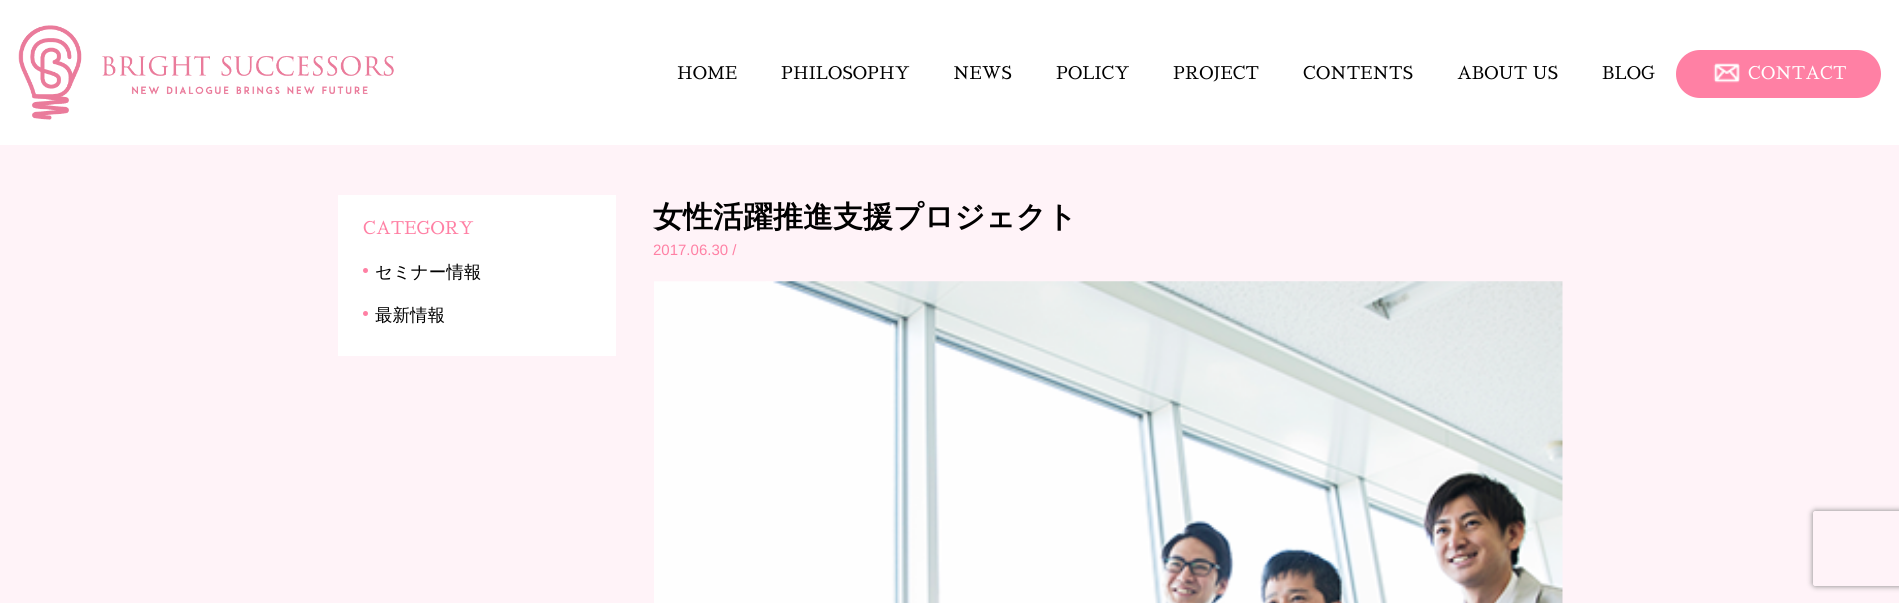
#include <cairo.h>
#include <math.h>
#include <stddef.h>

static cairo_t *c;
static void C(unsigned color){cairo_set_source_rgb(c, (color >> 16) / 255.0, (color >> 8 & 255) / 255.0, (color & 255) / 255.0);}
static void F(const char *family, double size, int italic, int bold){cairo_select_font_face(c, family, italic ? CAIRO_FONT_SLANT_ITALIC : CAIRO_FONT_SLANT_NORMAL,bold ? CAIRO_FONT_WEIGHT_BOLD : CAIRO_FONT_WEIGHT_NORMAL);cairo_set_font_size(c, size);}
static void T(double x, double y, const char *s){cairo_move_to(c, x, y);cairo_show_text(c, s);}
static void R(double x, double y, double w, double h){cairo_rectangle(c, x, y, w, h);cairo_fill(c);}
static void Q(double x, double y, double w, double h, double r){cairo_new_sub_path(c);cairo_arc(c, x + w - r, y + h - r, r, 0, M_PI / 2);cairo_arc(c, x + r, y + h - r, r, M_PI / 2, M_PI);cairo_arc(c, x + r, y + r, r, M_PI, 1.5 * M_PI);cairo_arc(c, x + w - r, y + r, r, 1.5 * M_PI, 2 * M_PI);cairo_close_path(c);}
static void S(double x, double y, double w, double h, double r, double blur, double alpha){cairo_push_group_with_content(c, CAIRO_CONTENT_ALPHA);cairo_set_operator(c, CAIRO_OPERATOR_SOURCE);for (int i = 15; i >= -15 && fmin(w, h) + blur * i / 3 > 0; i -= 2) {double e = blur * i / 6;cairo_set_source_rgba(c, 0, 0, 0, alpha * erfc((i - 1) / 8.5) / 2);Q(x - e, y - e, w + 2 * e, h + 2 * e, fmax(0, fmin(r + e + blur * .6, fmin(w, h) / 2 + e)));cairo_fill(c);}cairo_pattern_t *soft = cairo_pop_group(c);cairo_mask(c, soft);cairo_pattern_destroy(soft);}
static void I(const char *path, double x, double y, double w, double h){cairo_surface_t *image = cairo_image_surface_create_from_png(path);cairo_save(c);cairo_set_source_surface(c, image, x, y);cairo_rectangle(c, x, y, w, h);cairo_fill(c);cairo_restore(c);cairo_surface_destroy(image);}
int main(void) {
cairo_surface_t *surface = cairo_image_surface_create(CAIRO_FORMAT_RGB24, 1899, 603);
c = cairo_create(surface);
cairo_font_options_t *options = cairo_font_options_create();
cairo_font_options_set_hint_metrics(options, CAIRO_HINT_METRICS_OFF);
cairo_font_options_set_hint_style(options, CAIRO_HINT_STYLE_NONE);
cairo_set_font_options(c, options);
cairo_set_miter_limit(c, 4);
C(0xffffff);
cairo_paint(c);
I("1.png",18,25,376,95);
F("Sawarabi Mincho",17.5,0,0);
C(0x000000);
T(677,79,"HOME");
T(781,79,"PHILOSOPHY");
T(953,79,"NEWS");
T(1056,79,"POLICY");
T(1173,79,"PROJECT");
T(1303,79,"CONTENTS");
T(1457,79,"ABOUT US");
T(1602,79,"BLOG");
C(0xff80a4);
Q(1676,50,205,48,24);
cairo_fill(c);
I("2.png",1713,63,27,20);
C(0xffffff);
T(1748,79,"CONTACT");
C(0xfff3f8);
R(0,145,1899,458);
C(0xffffff);
R(338,195,278,161);
C(0xff80a4);
T(363,234,"CATEGORY");
cairo_new_path(c);
cairo_arc(c,365.5,270.5,2.5,0,2 * M_PI);
cairo_fill(c);
F("WenQuanYi Zen Hei Medium",17.5,0,0);
C(0x000000);
T(375,278,"セミナー情報");
C(0xff80a4);
cairo_new_path(c);
cairo_arc(c,365.5,313.5,2.5,0,2 * M_PI);
cairo_fill(c);
C(0x000000);
T(375,321,"最新情報");
F("WenQuanYi Zen Hei",30,0,1);
T(653,227,"女性活躍推進支援プロジェクト");
F("Liberation Sans",15,0,0);
C(0xff80a4);
T(653,255,"2017.06.30 /");
I("3.png",654,281,909,322);
cairo_save(c);
cairo_set_fill_rule(c,CAIRO_FILL_RULE_EVEN_ODD);
cairo_new_path(c);
cairo_move_to(c,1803,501);
cairo_line_to(c,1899,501);
cairo_line_to(c,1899,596);
cairo_line_to(c,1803,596);
cairo_close_path(c);
cairo_move_to(c,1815.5,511);
cairo_line_to(c,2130.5,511);
cairo_curve_to(c,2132,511,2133,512,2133,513.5);
cairo_line_to(c,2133,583.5);
cairo_curve_to(c,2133,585,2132,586,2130.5,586);
cairo_line_to(c,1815.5,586);
cairo_curve_to(c,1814,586,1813,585,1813,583.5);
cairo_line_to(c,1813,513.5);
cairo_curve_to(c,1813,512,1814,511,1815.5,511);
cairo_close_path(c);
cairo_clip(c);
C(0x808080);
S(1813,511,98,75,2.5,3,1);
cairo_restore(c);
cairo_surface_write_to_png(surface, "o.png");
cairo_font_options_destroy(options);
cairo_destroy(c);
cairo_surface_destroy(surface);
return 0;
}
